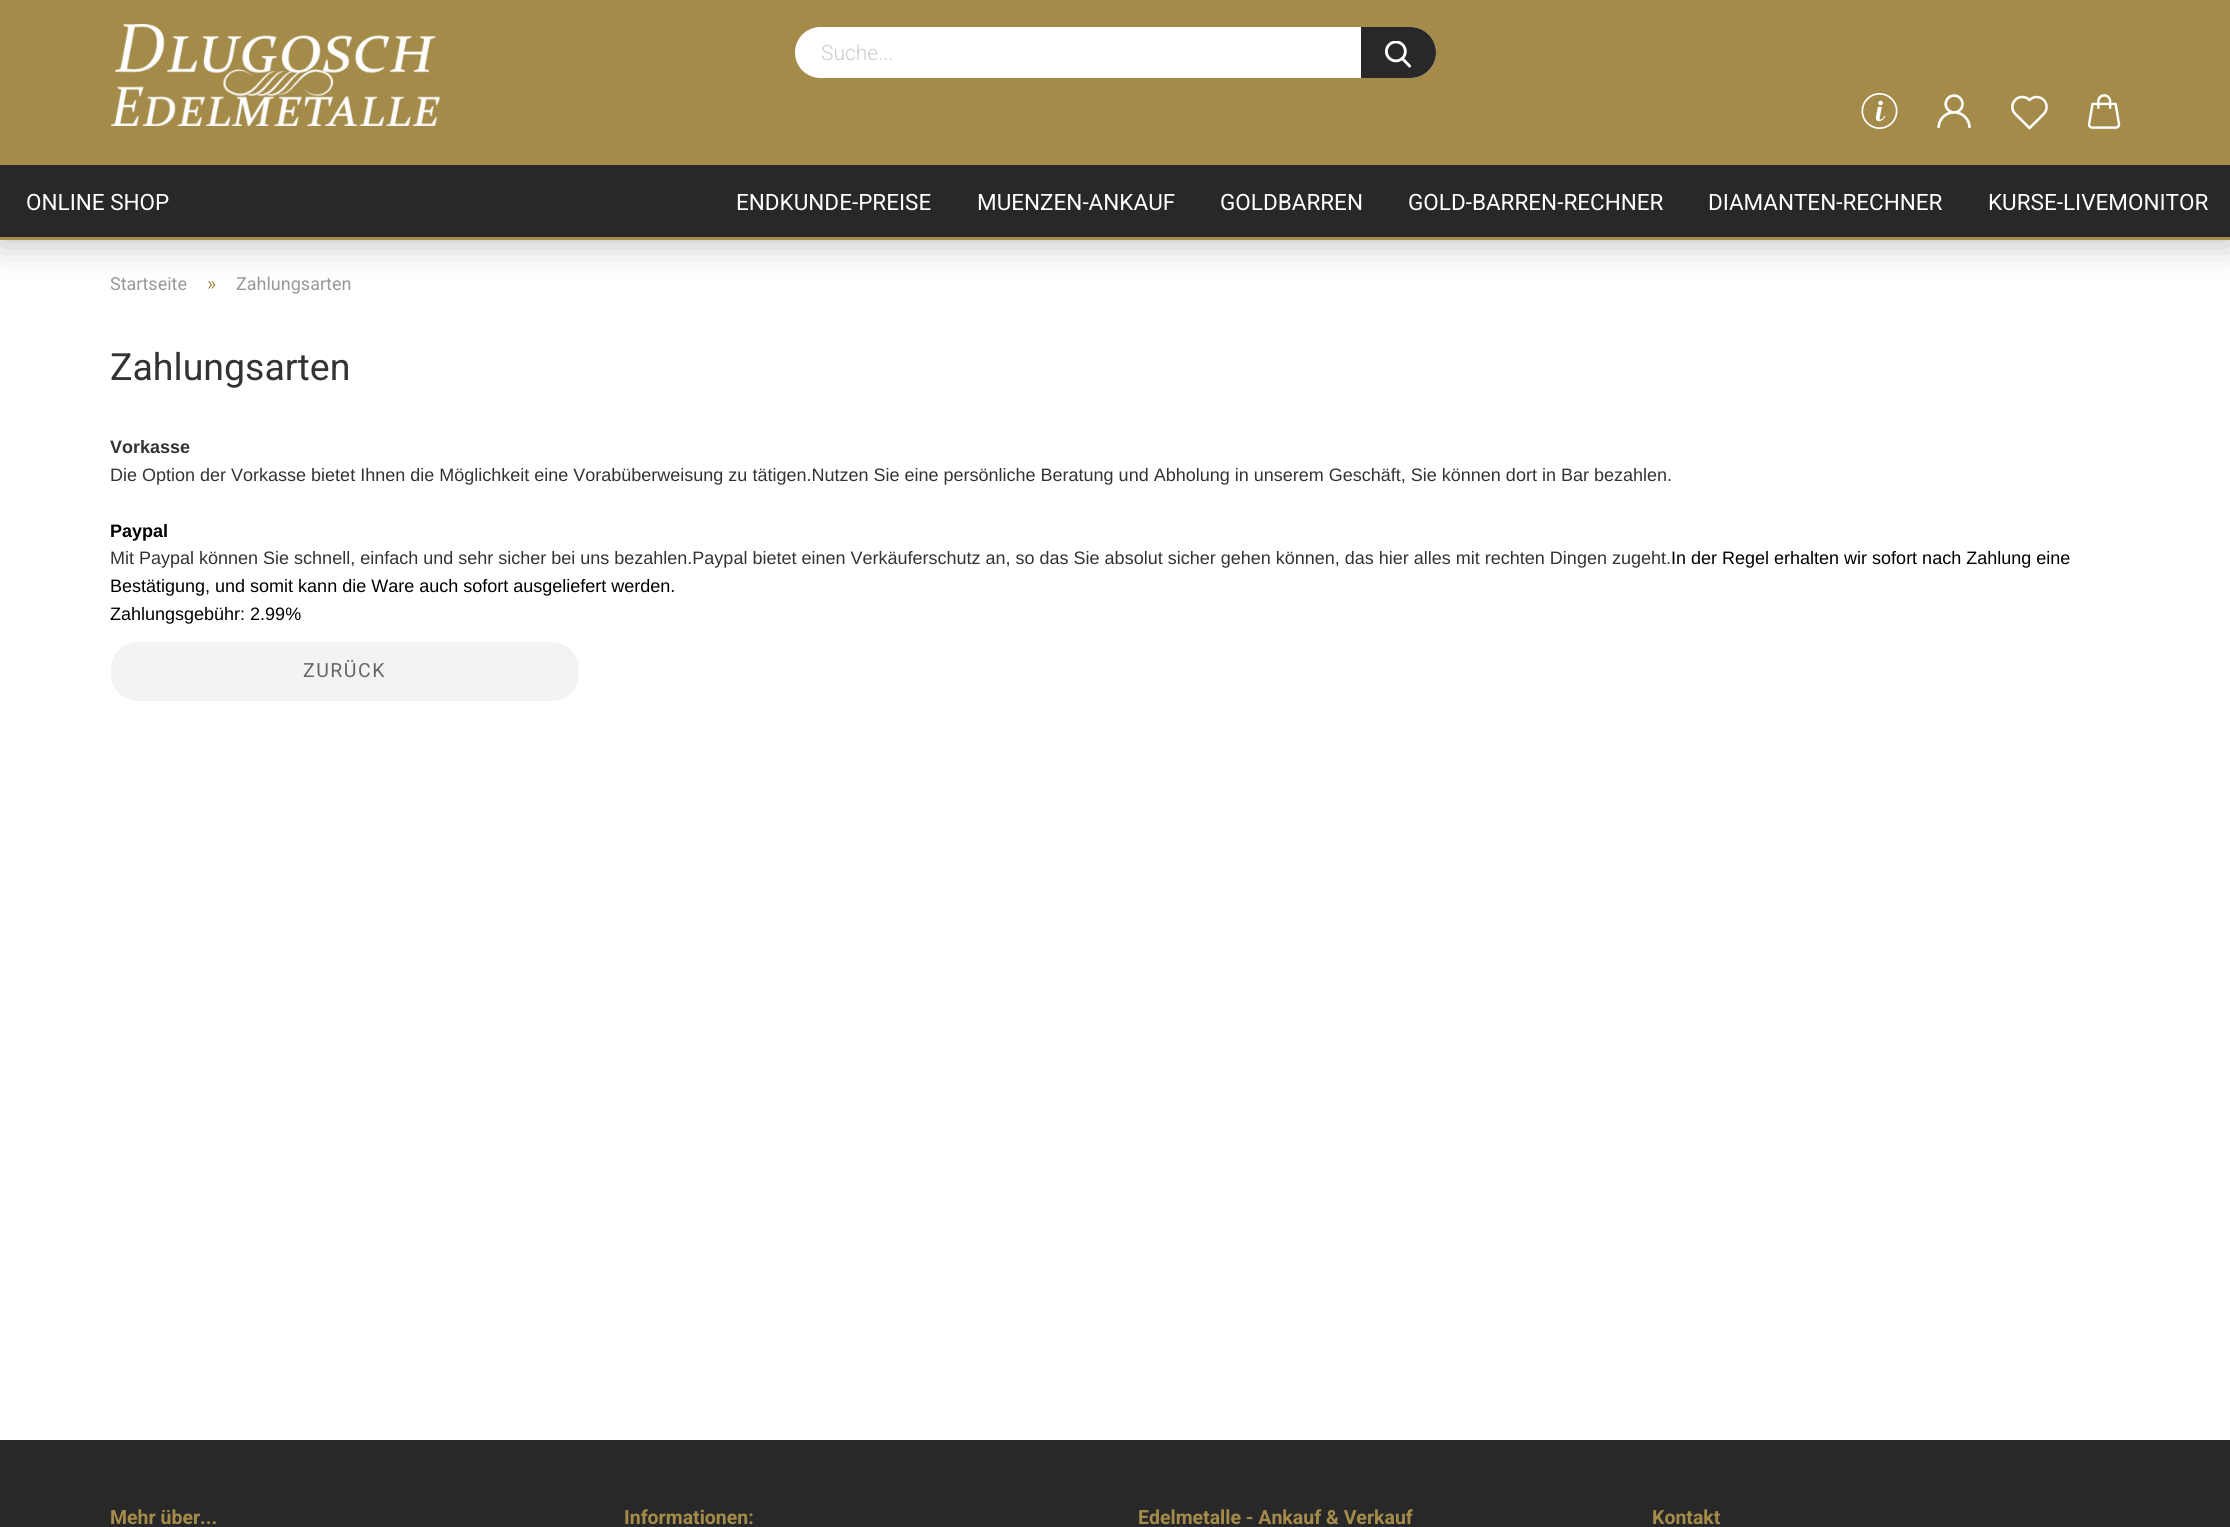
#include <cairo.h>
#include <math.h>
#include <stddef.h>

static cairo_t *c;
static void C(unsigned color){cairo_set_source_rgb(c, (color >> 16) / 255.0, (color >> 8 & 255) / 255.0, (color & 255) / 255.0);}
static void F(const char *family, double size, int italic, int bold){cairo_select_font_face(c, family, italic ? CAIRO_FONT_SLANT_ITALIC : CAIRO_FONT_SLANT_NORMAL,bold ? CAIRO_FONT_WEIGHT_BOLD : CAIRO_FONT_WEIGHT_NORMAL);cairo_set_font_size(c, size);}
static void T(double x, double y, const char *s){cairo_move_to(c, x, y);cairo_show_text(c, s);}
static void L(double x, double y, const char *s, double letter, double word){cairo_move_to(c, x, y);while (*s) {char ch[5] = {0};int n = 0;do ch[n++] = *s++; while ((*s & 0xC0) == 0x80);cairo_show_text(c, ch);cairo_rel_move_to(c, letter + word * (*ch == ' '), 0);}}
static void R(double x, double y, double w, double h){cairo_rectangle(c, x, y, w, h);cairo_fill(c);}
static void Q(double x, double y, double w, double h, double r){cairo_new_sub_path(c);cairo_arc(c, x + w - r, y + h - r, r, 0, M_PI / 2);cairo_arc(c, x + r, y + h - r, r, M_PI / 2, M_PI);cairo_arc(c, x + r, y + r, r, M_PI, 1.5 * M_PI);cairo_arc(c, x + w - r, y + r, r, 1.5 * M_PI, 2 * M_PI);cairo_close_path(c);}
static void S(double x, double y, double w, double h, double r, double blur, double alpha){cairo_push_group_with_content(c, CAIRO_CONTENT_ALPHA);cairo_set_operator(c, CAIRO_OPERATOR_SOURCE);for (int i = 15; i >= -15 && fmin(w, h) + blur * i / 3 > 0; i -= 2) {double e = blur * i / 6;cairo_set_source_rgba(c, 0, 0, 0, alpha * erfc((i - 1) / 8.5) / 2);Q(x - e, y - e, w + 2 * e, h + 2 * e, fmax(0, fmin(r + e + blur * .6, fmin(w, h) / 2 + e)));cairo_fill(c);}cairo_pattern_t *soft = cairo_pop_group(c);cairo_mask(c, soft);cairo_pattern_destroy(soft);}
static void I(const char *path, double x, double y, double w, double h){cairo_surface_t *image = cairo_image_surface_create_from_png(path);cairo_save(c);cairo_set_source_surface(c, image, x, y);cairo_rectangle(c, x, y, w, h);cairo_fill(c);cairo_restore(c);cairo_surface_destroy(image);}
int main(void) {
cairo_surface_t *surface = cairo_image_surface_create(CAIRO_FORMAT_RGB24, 2230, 1527);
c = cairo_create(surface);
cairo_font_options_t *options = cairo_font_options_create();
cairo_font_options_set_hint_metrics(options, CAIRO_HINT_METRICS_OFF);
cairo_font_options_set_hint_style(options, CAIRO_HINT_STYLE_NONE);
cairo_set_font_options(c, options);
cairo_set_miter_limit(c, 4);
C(0xffffff);
cairo_paint(c);
C(0x000000);
S(0,0,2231,240,0,19,.3);
C(0xa48b4a);
R(0,0,2230,240);
I("1.png",110,24,330,102);
C(0xffffff);
Q(796.5,28.5,638,48,24);
cairo_fill_preserve(c);
cairo_set_line_width(c,3);
cairo_stroke(c);
F("Roboto Light",21,0,0);
C(0xcccccc);
T(821,60,"Suche...");
C(0x282828);
cairo_new_path(c);
cairo_move_to(c,1361,27);
cairo_line_to(c,1410.5,27);
cairo_curve_to(c,1424.5,27,1436,38.5,1436,52.5);
cairo_curve_to(c,1436,66.5,1424.5,78,1410.5,78);
cairo_line_to(c,1361,78);
cairo_close_path(c);
cairo_fill(c);
I("2.png",1385,41,26,27);
I("3.png",1861,93,37,36);
I("4.png",1937,94,34,34);
I("5.png",2011,95,37,35);
I("6.png",2087,94,34,35);
R(0,165,2230,72);
F("Roboto",22.5,0,0);
C(0xffffff);
T(26,210,"ONLINE SHOP");
T(736,210,"ENDKUNDE-PREISE");
T(977,210,"MUENZEN-ANKAUF");
T(1220,210,"GOLDBARREN");
T(1408,210,"GOLD-BARREN-RECHNER");
T(1708,210,"DIAMANTEN-RECHNER");
T(1988,210,"KURSE-LIVEMONITOR");
F("Roboto",18,0,0);
C(0x999999);
T(110,290,"Startseite");
F("Roboto",19.5,0,0);
C(0xa48b4a);
T(207,290,"»");
F("Roboto",18,0,0);
C(0x999999);
T(236,290,"Zahlungsarten");
F("Roboto",37.5,0,0);
C(0x333333);
T(110,380,"Zahlungsarten");
F("Liberation Sans",18,0,1);
T(110,453,"Vorkasse");
F("Liberation Sans",18,0,0);
T(110,481,"Die Option der Vorkasse bietet Ihnen die Möglichkeit eine Vorabüberweisung zu tätigen.Nutzen Sie eine persönliche Beratung und Abholung in unserem Geschäft, Sie können dort in Bar bezahlen.");
F("Liberation Sans",18,0,1);
C(0x000000);
T(110,537,"Paypal");
F("Liberation Sans",18,0,0);
C(0x333333);
T(110,564,"Mit Paypal können Sie schnell, einfach und sehr sicher bei uns bezahlen.Paypal bietet einen Verkäuferschutz an, so das Sie absolut sicher gehen können, das hier alles mit rechten Dingen zugeht.");
C(0x000000);
T(1671,564,"In der Regel erhalten wir sofort nach Zahlung eine");
T(110,592,"Bestätigung, und somit kann die Ware auch sofort ausgeliefert werden.");
T(110,620,"Zahlungsgebühr: 2.99%");
C(0xf3f3f3);
Q(112,643,466,57,26);
cairo_fill_preserve(c);
cairo_set_line_width(c,2);
cairo_stroke(c);
F("Roboto",19.5,0,0);
C(0x666666);
L(303,677,"ZURÜCK",1.5,0);
C(0x282828);
R(0,1440,2230,87);
F("Roboto",19.5,0,1);
C(0xa48b4a);
T(110,1524,"Mehr über...");
T(624,1524,"Informationen:");
T(1138,1524,"Edelmetalle - Ankauf & Verkauf");
T(1652,1524,"Kontakt");
cairo_surface_write_to_png(surface, "o.png");
cairo_font_options_destroy(options);
cairo_destroy(c);
cairo_surface_destroy(surface);
return 0;
}
